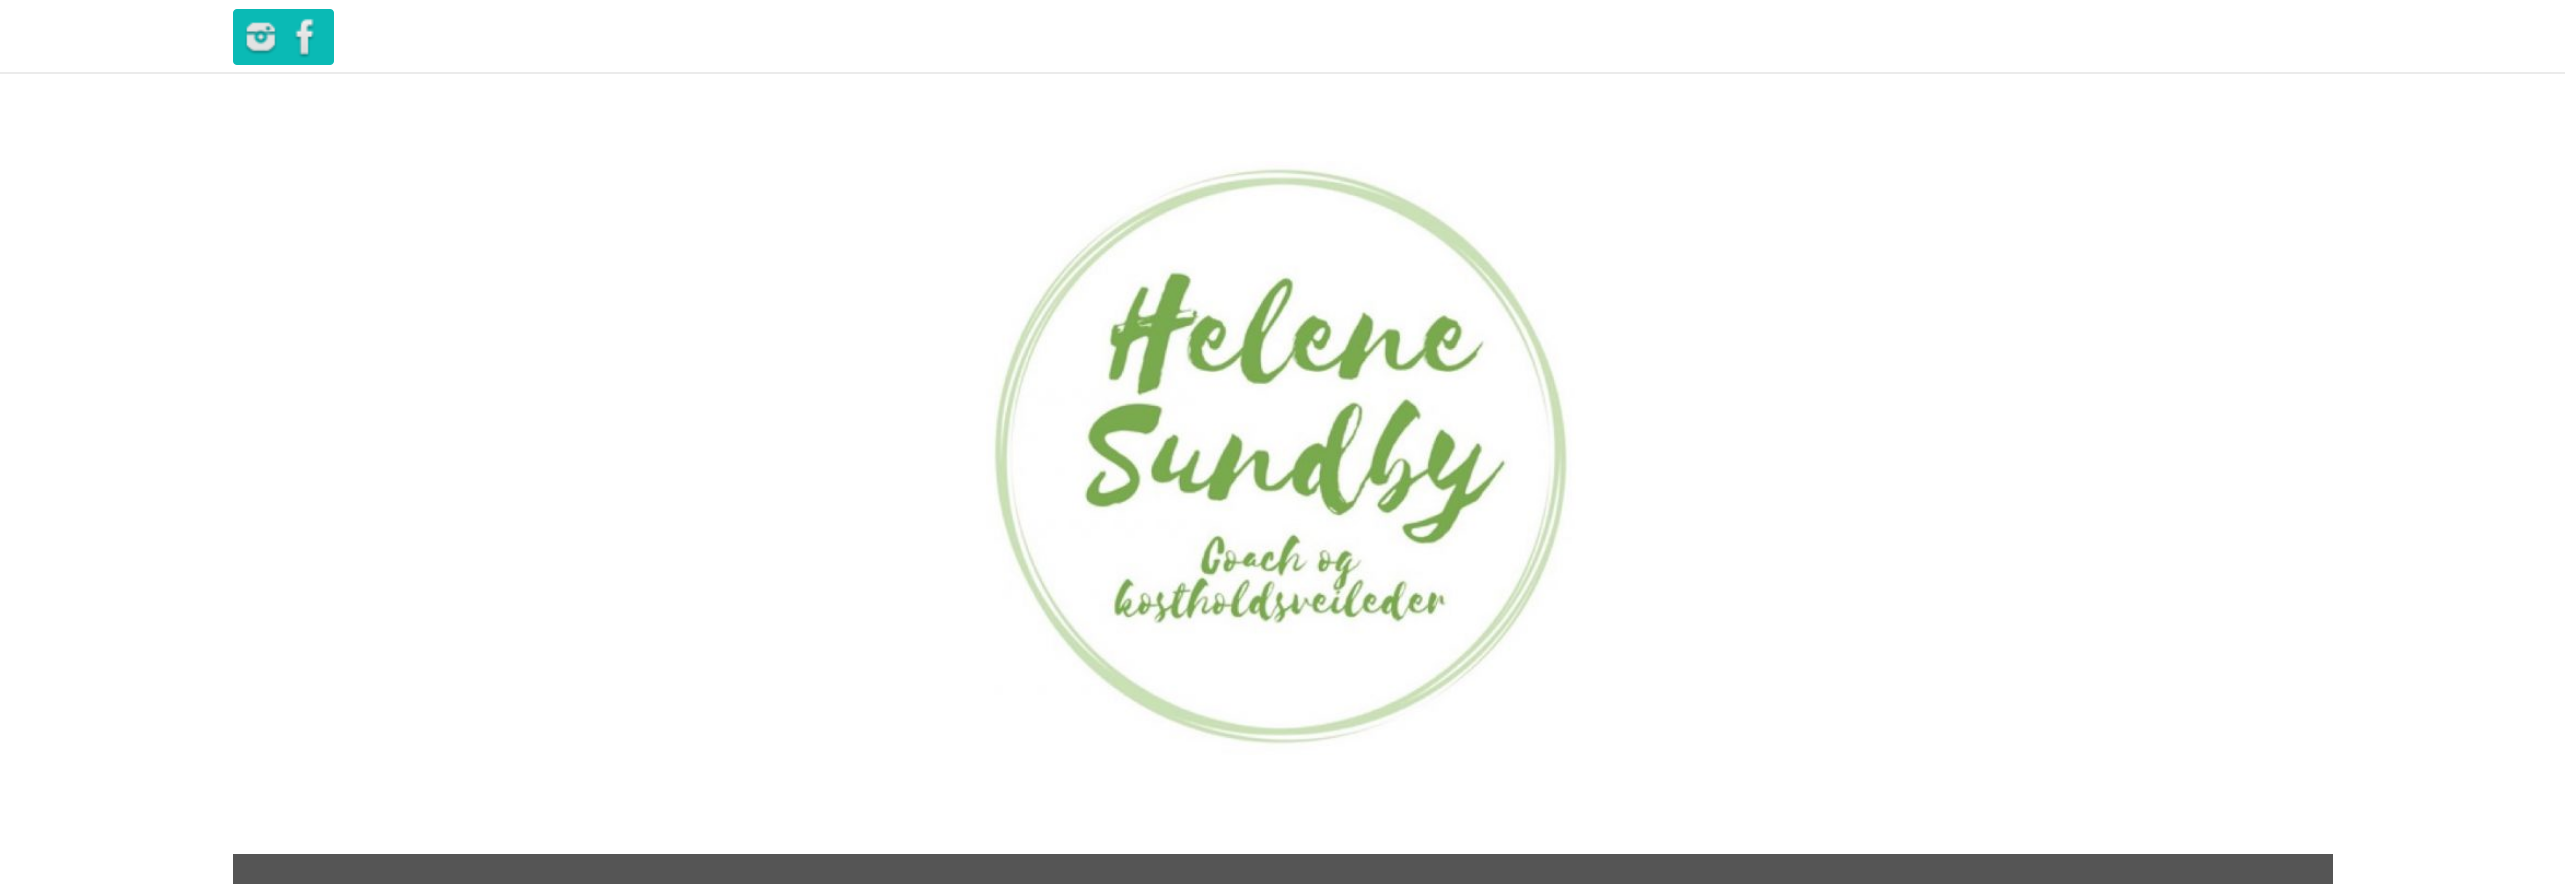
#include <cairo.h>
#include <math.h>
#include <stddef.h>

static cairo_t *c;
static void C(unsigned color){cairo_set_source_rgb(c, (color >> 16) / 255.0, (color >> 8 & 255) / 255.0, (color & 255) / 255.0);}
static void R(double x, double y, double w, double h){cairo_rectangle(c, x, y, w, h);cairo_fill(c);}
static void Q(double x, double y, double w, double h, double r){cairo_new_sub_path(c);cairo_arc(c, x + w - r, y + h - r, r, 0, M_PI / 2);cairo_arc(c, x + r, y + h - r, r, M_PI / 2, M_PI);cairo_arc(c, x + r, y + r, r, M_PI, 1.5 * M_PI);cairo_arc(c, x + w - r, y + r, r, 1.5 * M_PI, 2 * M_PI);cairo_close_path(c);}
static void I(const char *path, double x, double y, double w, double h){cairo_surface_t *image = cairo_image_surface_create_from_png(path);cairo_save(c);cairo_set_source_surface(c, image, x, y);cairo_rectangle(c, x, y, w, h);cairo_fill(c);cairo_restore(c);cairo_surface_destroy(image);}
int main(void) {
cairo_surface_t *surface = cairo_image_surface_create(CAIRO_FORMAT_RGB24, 2565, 884);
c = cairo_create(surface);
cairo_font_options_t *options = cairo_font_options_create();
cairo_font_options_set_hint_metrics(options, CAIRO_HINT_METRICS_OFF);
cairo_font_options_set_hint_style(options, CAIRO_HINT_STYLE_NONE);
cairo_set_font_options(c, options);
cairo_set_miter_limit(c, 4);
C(0xffffff);
cairo_paint(c);
C(0xebebeb);
R(0,72,2565,2);
C(0x0abab5);
Q(233,9,56,56,4);
cairo_fill(c);
I("1.png",245,22,32,33);
Q(278,9,56,56,4);
cairo_fill(c);
I("2.png",294,18,21,40);
I("3.png",986,161,590,594);
C(0x555555);
R(233,854,2100,30);
cairo_surface_write_to_png(surface, "o.png");
cairo_font_options_destroy(options);
cairo_destroy(c);
cairo_surface_destroy(surface);
return 0;
}
